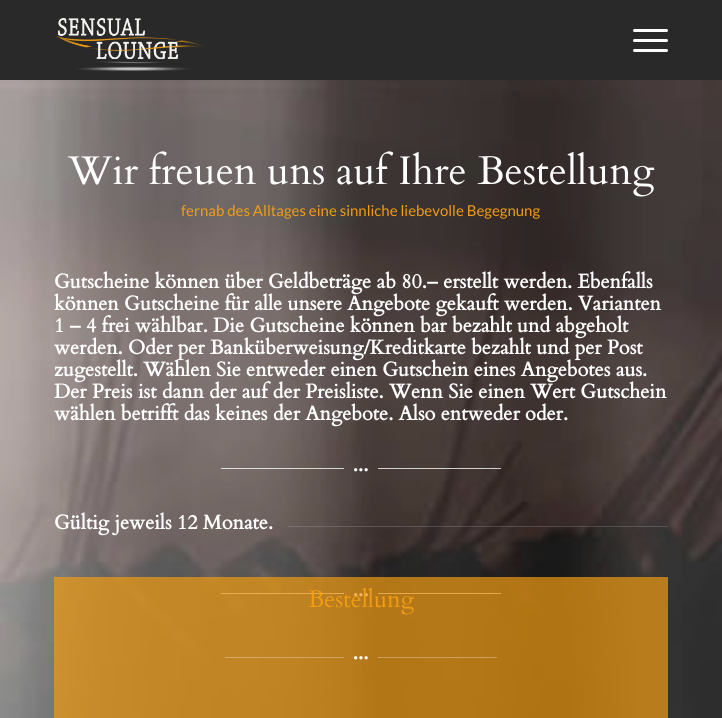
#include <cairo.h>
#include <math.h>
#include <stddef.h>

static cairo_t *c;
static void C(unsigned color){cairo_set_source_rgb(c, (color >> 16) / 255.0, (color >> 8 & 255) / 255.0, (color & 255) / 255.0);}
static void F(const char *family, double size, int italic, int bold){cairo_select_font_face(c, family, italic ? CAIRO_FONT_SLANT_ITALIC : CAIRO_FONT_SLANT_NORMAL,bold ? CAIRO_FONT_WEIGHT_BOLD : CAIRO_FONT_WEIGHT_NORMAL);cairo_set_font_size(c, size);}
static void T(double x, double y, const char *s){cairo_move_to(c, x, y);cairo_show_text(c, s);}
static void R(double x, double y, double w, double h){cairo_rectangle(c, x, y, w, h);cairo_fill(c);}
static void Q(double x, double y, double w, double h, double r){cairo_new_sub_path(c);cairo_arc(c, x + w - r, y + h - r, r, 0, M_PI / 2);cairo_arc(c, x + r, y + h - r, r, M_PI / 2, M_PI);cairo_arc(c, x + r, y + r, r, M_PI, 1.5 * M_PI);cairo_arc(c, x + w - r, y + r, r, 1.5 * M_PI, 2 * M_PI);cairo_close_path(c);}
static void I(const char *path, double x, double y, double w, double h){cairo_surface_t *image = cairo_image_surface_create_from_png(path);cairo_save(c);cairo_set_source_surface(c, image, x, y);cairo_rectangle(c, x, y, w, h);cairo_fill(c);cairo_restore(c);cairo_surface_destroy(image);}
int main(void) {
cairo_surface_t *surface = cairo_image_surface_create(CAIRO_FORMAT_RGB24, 722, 718);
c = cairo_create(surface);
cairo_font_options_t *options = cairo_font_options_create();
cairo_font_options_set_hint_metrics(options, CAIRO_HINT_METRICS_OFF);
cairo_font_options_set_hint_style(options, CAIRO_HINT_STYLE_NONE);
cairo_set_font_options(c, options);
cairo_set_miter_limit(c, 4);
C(0x292929);
cairo_paint(c);
I("1.png",56,18,149,53);
C(0xffffff);
Q(633,39,35,3,1.5);
cairo_fill(c);
Q(633,29,35,3,1.5);
cairo_fill(c);
Q(633,49,35,3,1.5);
cairo_fill(c);
I("2.png",0,80,722,638);
F("Cardo",40,0,0);
T(68,184,"Wir freuen uns auf Ihre Bestellung");
F("Lato",15,0,0);
C(0xf19c14);
T(181,216,"fernab des Alltages eine sinnliche liebevolle Begegnung");
F("Cardo",20,0,1);
C(0xffffff);
T(54,288,"Gutscheine können über Geldbeträge ab 80.– erstellt werden. Ebenfalls");
T(54,310,"können Gutscheine für alle unsere Angebote gekauft werden. Varianten");
T(54,332,"1 – 4 frei wählbar. Die Gutscheine können bar bezahlt und abgeholt");
T(54,354,"werden. Oder per Banküberweisung/Kreditkarte bezahlt und per Post");
T(54,376,"zugestellt. Wählen Sie entweder einen Gutschein eines Angebotes aus.");
T(54,398,"Der Preis ist dann der auf der Preisliste. Wenn Sie einen Wert Gutschein");
T(54,420,"wählen betrifft das keines der Angebote. Also entweder oder.");
cairo_set_source_rgba(c,1,1,1,0.76);
R(221,468,123,1);
I("3.png",354,468,14,4);
R(378,468,123,1);
C(0xffffff);
T(54,529,"Gültig jeweils 12 Monate.");
cairo_set_source_rgba(c,1,1,1,0.15);
R(288,526,380,1);
cairo_set_source_rgba(c,1,1,1,0.76);
R(221,593,123,1);
I("5.png",354,593,14,4);
R(378,593,123,1);
cairo_set_source_rgba(c,0.945,0.612,0.078,0.7);
R(54,577,614,141);
F("Cardo",24,0,0);
C(0xf19c14);
T(308,607,"Bestellung");
cairo_set_source_rgba(c,1,1,1,0.3);
R(225,657,119,1);
I("4.png",354,656,14,4);
C(0xcaa05d);
R(378,657,119,1);
cairo_surface_write_to_png(surface, "o.png");
cairo_font_options_destroy(options);
cairo_destroy(c);
cairo_surface_destroy(surface);
return 0;
}
